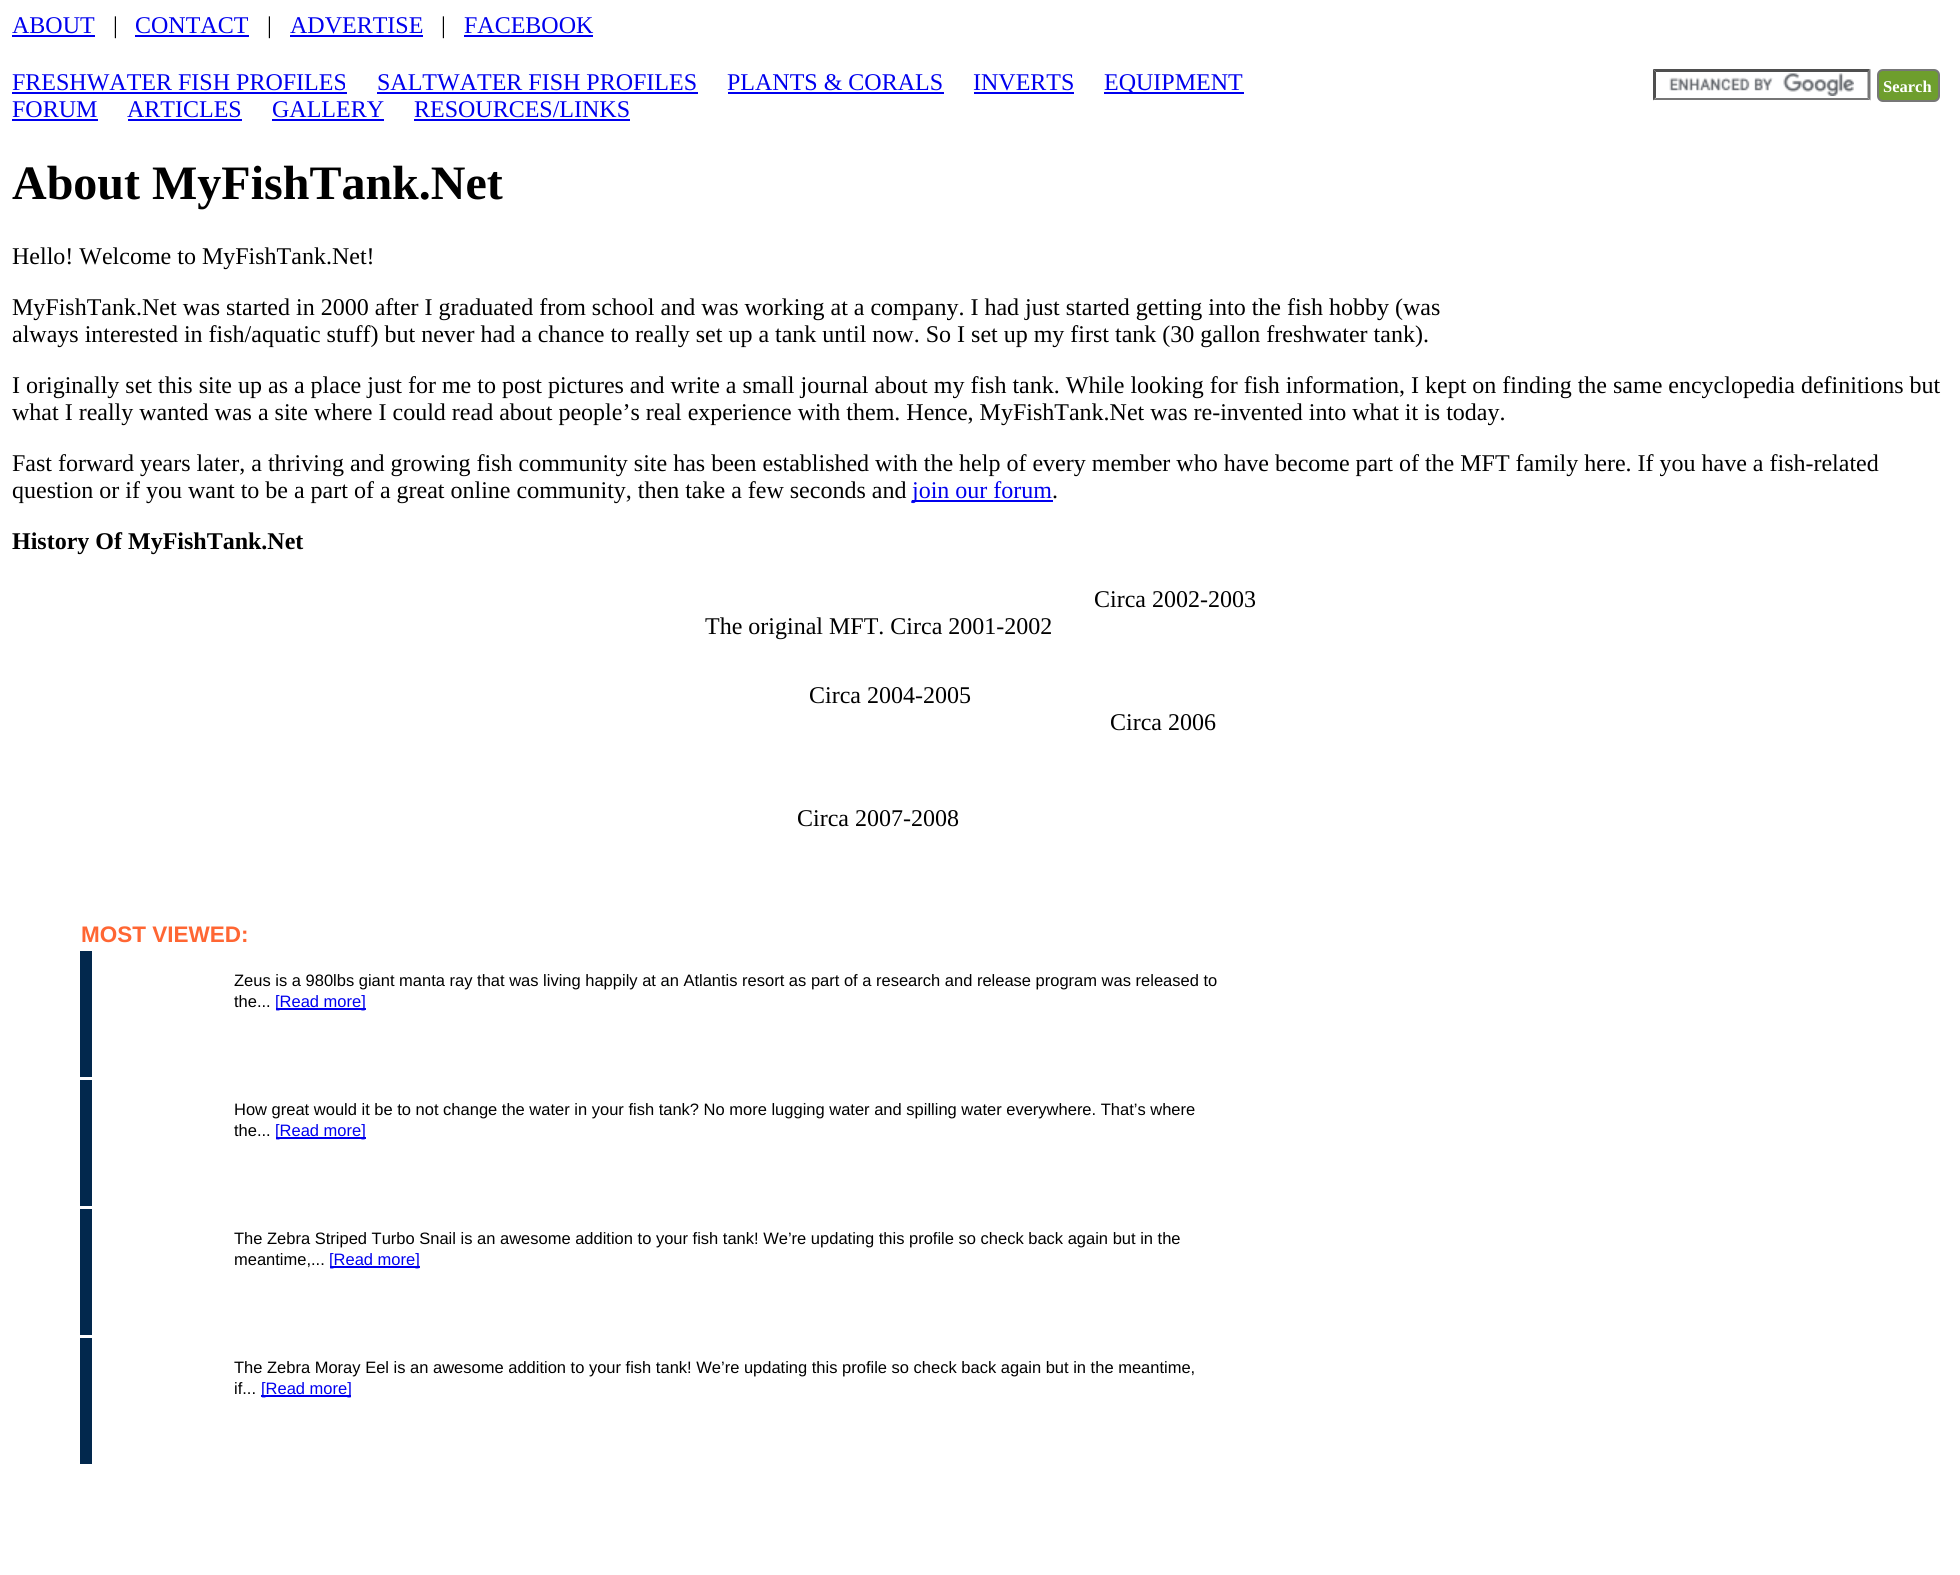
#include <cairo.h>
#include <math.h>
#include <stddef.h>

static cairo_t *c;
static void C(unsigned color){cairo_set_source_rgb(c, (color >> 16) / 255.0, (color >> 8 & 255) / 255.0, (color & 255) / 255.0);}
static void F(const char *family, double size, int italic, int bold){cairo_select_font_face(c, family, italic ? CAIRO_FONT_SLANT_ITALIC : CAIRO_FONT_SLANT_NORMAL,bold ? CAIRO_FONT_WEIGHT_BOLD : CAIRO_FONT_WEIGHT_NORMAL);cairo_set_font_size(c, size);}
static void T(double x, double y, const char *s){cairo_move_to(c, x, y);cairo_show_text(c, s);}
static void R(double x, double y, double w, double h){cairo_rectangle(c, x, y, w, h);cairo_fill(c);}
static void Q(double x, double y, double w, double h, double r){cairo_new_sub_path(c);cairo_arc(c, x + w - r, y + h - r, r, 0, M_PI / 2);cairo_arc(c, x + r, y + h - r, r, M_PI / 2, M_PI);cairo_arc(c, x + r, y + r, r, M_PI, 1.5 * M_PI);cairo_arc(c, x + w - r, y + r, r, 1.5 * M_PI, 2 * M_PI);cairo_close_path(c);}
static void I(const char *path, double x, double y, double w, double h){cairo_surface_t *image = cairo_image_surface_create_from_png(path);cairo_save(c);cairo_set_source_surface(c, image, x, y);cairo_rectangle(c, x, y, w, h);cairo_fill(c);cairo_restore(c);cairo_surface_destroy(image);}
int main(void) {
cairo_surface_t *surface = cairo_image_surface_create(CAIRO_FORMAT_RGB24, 1960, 1575);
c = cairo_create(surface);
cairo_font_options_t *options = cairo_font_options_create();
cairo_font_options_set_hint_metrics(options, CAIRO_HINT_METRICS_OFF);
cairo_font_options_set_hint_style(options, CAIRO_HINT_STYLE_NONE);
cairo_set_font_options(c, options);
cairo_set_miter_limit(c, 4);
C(0xffffff);
cairo_paint(c);
F("Liberation Serif",24,0,0);
C(0x0000ee);
T(12,33,"ABOUT");
R(12,35,83,2);
C(0x000000);
T(113,33,"|");
C(0x0000ee);
T(135,33,"CONTACT");
R(135,35,114,2);
C(0x000000);
T(267,33,"|");
C(0x0000ee);
T(290,33,"ADVERTISE");
R(290,35,133,2);
C(0x000000);
T(441,33,"|");
C(0x0000ee);
T(464,33,"FACEBOOK");
R(464,35,129,2);
T(12,90,"FRESHWATER FISH PROFILES");
R(12,92,335,2);
T(377,90,"SALTWATER FISH PROFILES");
R(377,92,321,2);
T(727,90,"PLANTS & CORALS");
R(728,92,216,2);
T(973,90,"INVERTS");
R(974,92,100,2);
R(1104,92,140,2);
T(1104,90,"EQUIPMENT");
I("1.png",1669,73,185,23);
C(0x4f4f4f);
cairo_new_path(c);
cairo_move_to(c,1653,69);
cairo_line_to(c,1870,69);
cairo_line_to(c,1868,72);
cairo_line_to(c,1656,72);
cairo_close_path(c);
cairo_fill(c);
C(0x767676);
cairo_new_path(c);
cairo_move_to(c,1870.5,69);
cairo_line_to(c,1870.5,100.5);
cairo_line_to(c,1867.5,97.5);
cairo_line_to(c,1867.5,72);
cairo_close_path(c);
cairo_fill(c);
cairo_new_path(c);
cairo_move_to(c,1870,100);
cairo_line_to(c,1653,100);
cairo_line_to(c,1656,98);
cairo_line_to(c,1868,98);
cairo_close_path(c);
cairo_fill(c);
C(0x4f4f4f);
cairo_new_path(c);
cairo_move_to(c,1653,100.5);
cairo_line_to(c,1653,69);
cairo_line_to(c,1656,72);
cairo_line_to(c,1656,97.5);
cairo_close_path(c);
cairo_fill(c);
C(0x6e9e2d);
Q(1878,70,61,31,5);
cairo_fill_preserve(c);
C(0x777777);
cairo_stroke(c);
F("Liberation Serif",16.5,0,1);
C(0xffffff);
T(1883,92,"Search");
F("Liberation Serif",24,0,0);
C(0x0000ee);
T(12,117,"FORUM");
R(12,119,86,2);
T(127,117,"ARTICLES");
R(128,119,114,2);
T(272,117,"GALLERY");
R(272,119,112,2);
T(414,117,"RESOURCES/LINKS");
R(414,119,216,2);
F("Liberation Serif",48,0,1);
C(0x000000);
T(12,199,"About MyFishTank.Net");
F("Liberation Serif",24,0,0);
T(12,264,"Hello! Welcome to MyFishTank.Net!");
T(12,315,"MyFishTank.Net was started in 2000 after I graduated from school and was working at a company. I had just started getting into the fish hobby (was");
T(12,342,"always interested in fish/aquatic stuff) but never had a chance to really set up a tank until now. So I set up my first tank (30 gallon freshwater tank).");
T(12,393,"I originally set this site up as a place just for me to post pictures and write a small journal about my fish tank. While looking for fish information, I kept on finding the same encyclopedia definitions but");
T(12,420,"what I really wanted was a site where I could read about people’s real experience with them. Hence, MyFishTank.Net was re-invented into what it is today.");
T(12,471,"Fast forward years later, a thriving and growing fish community site has been established with the help of every member who have become part of the MFT family here. If you have a fish-related");
T(12,498,"question or if you want to be a part of a great online community, then take a few seconds and");
C(0x0000ee);
R(912,500,141,2);
T(912,498,"join our forum");
C(0x000000);
T(1052,498,".");
F("Liberation Serif",24,0,1);
T(12,549,"History Of MyFishTank.Net");
F("Liberation Serif",24,0,0);
T(1094,607,"Circa 2002-2003");
T(705,634,"The original MFT. Circa 2001-2002");
T(809,703,"Circa 2004-2005");
T(1110,730,"Circa 2006");
T(797,826,"Circa 2007-2008");
F("Liberation Sans",22.5,0,1);
C(0xff6633);
T(81,942,"MOST VIEWED:");
C(0x02284d);
R(80,951,12,126);
F("Liberation Sans",16.5,0,0);
C(0x000000);
T(234,986,"Zeus is a 980lbs giant manta ray that was living happily at an Atlantis resort as part of a research and release program was released to");
T(234,1007,"the...");
C(0x0000ee);
R(276,1008,90,2);
T(275,1007,"[Read more]");
C(0x02284d);
R(80,1080,12,126);
C(0x000000);
T(234,1115,"How great would it be to not change the water in your fish tank? No more lugging water and spilling water everywhere. That’s where");
T(234,1136,"the...");
C(0x0000ee);
R(276,1137,90,2);
T(275,1136,"[Read more]");
C(0x02284d);
R(80,1209,12,126);
C(0x000000);
T(234,1244,"The Zebra Striped Turbo Snail is an awesome addition to your fish tank! We’re updating this profile so check back again but in the");
T(234,1265,"meantime,...");
C(0x0000ee);
R(330,1266,90,2);
T(329,1265,"[Read more]");
C(0x02284d);
R(80,1338,12,126);
C(0x000000);
T(234,1373,"The Zebra Moray Eel is an awesome addition to your fish tank! We’re updating this profile so check back again but in the meantime,");
T(234,1394,"if...");
C(0x0000ee);
R(261,1395,90,2);
T(261,1394,"[Read more]");
cairo_surface_write_to_png(surface, "o.png");
cairo_font_options_destroy(options);
cairo_destroy(c);
cairo_surface_destroy(surface);
return 0;
}
